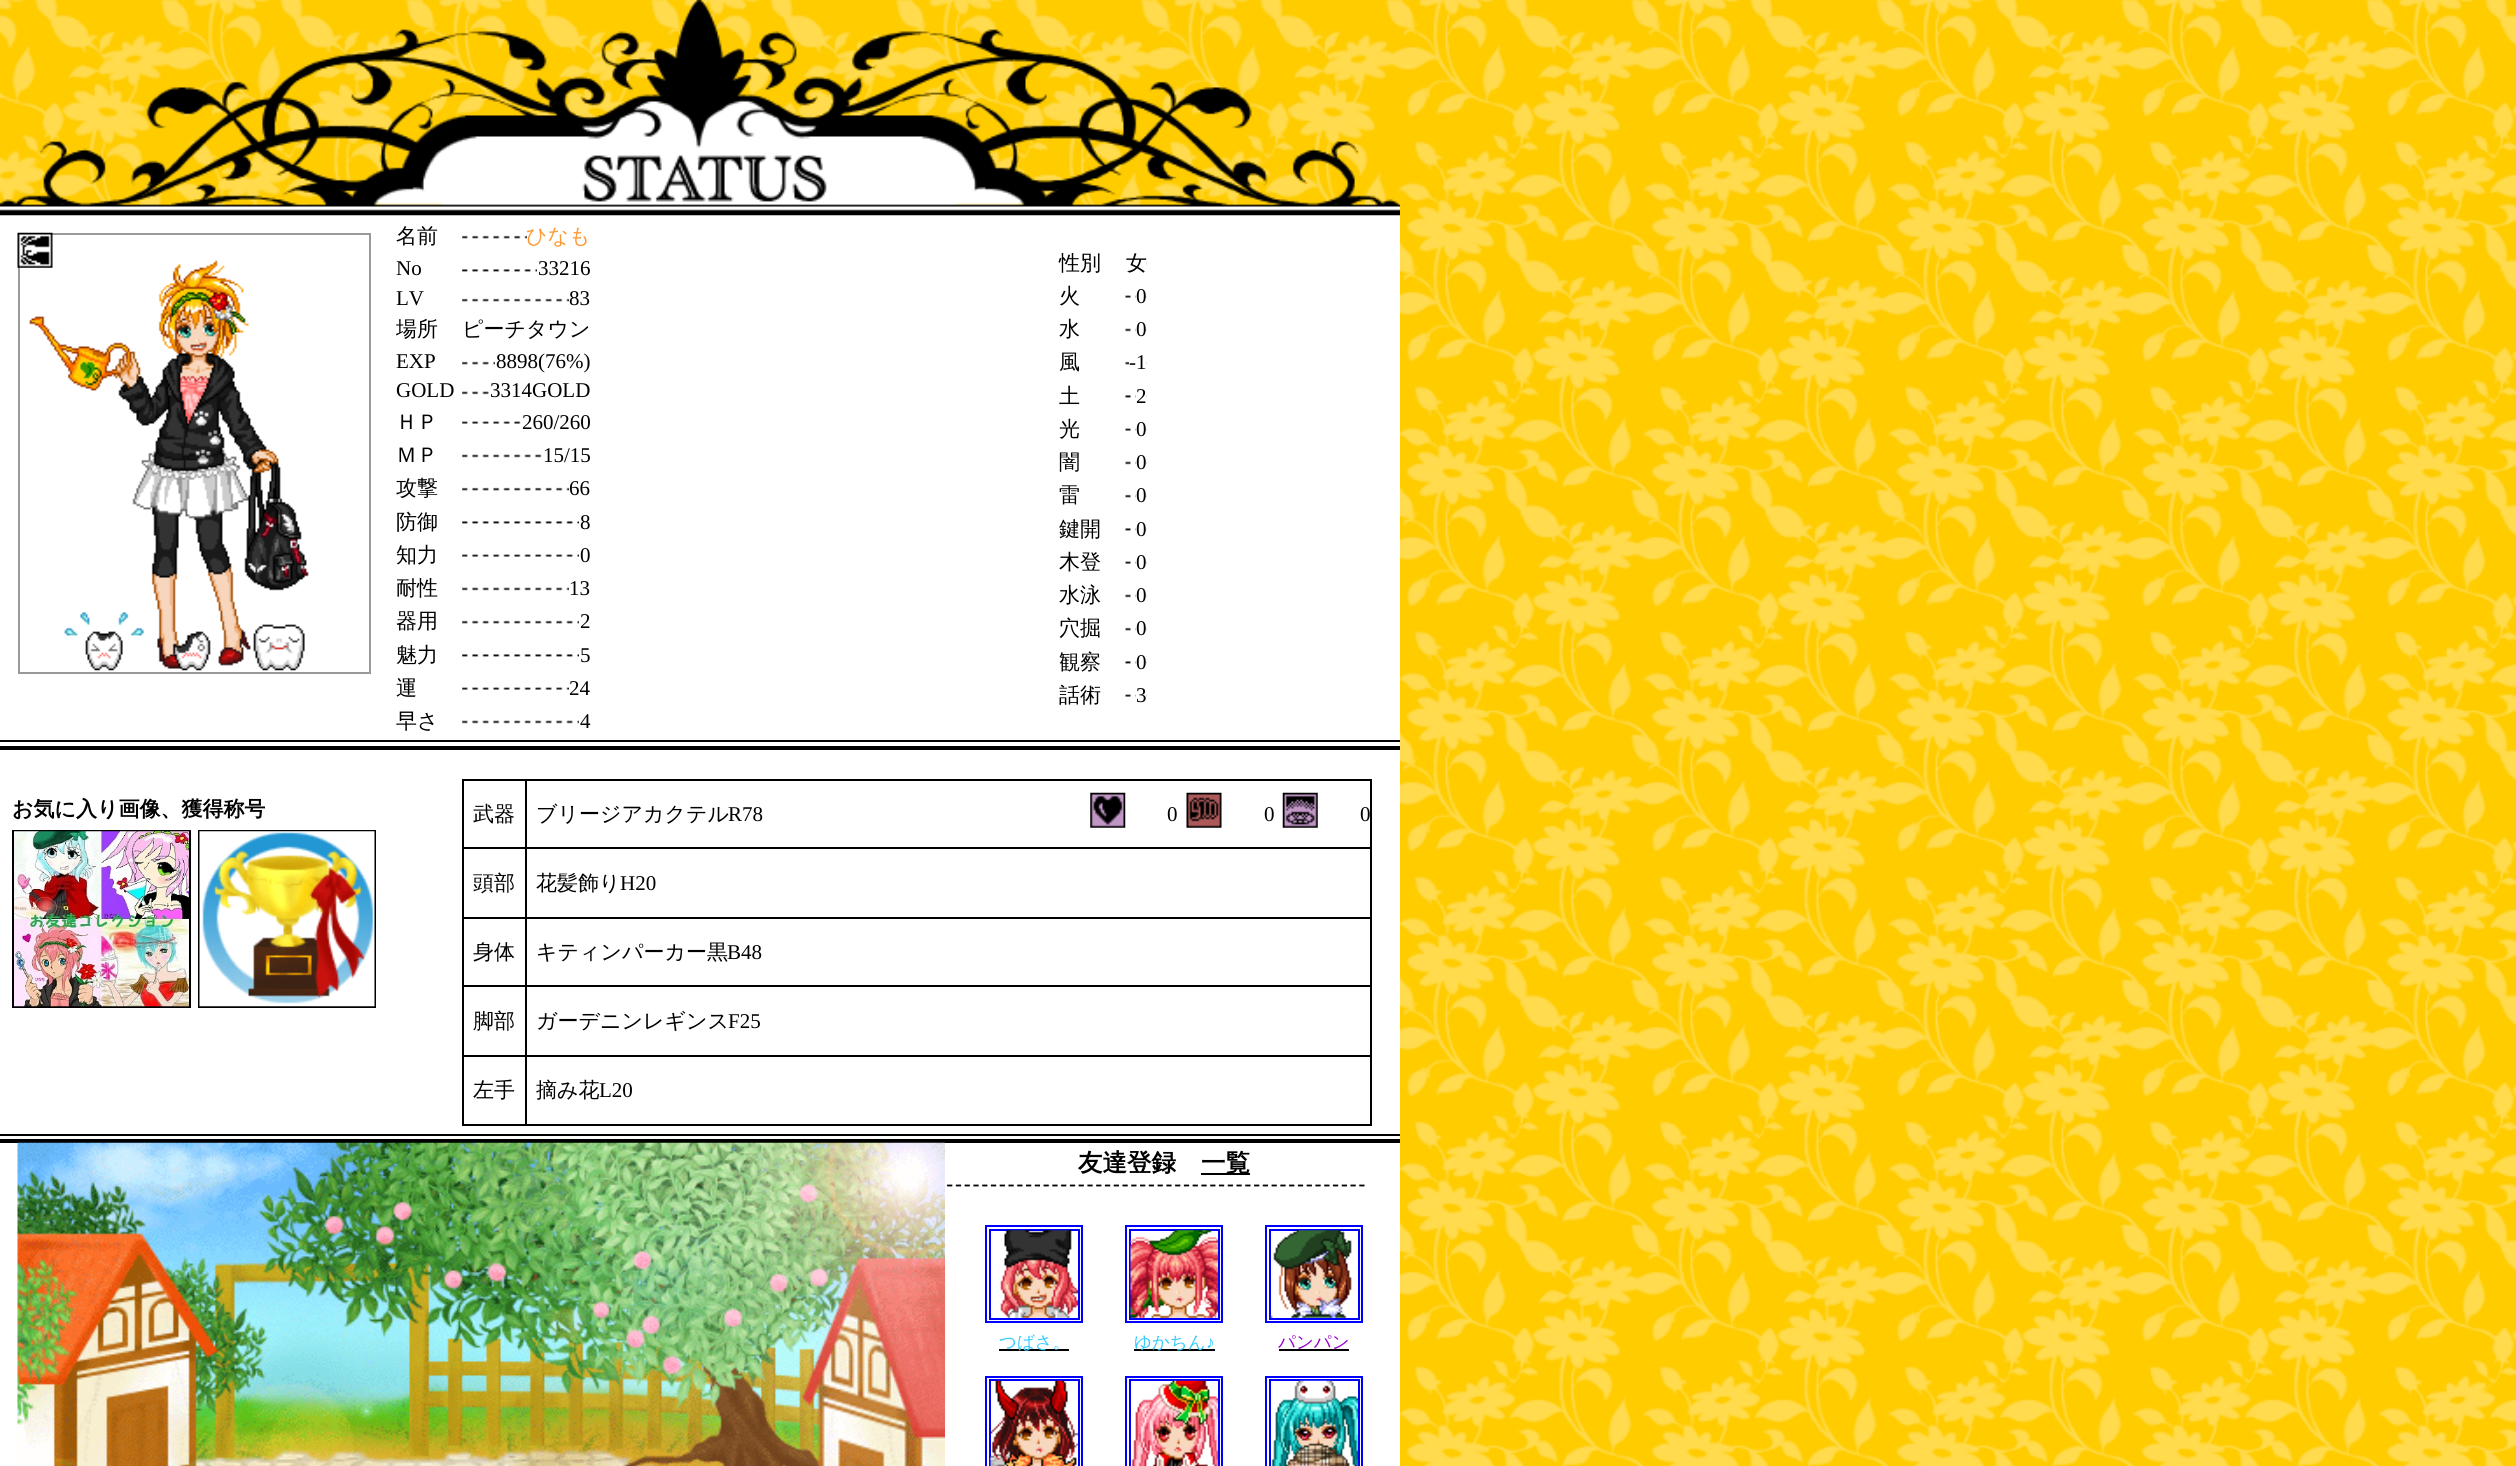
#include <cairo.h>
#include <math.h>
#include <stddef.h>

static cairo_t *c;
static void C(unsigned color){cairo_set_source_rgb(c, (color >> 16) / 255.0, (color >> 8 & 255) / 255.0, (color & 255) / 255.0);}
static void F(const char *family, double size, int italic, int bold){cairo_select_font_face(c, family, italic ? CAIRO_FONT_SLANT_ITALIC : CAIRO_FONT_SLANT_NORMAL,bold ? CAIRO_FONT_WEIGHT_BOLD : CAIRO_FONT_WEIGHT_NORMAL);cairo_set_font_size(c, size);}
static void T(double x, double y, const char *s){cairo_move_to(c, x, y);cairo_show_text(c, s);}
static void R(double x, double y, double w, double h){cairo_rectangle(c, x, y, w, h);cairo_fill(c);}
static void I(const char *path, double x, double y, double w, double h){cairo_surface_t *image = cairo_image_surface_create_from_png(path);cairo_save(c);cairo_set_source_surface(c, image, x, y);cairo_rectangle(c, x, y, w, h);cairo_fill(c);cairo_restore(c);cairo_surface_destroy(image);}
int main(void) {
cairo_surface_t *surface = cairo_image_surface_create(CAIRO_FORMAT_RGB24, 2516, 1466);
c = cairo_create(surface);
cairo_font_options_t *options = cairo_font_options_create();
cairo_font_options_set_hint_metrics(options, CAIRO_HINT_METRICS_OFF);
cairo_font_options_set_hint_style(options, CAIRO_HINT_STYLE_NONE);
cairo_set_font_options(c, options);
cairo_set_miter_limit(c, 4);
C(0xffffff);
cairo_paint(c);
I("1.png",0,0,2516,1466);
C(0xffffff);
R(0,215,1400,1251);
I("2.png",0,0,1400,216);
C(0x000000);
R(0,740,1400,2);
cairo_rectangle(c,19,234,351,439);
C(0x999999);
cairo_stroke(c);
I("7.png",29,260,280,409);
I("3.png",17,232,36,36);
I("4.png",64,612,80,59);
I("5.png",172,631,39,40);
I("6.png",253,624,52,47);
F("WenQuanYi Zen Hei Medium",21,0,0);
C(0x000000);
T(396,243,"名前");
I("8.png",462,235,65,4);
C(0xff9933);
T(526,243,"ひなも");
F("Liberation Serif",21,0,0);
C(0x000000);
T(396,275,"No");
I("9.png",462,269,75,3);
T(538,275,"33216");
T(396,305,"LV");
I("10.png",462,298,107,4);
T(569,305,"83");
F("WenQuanYi Zen Hei Medium",21,0,0);
T(396,336,"場所");
T(462,336,"ピーチタウン");
F("Liberation Serif",21,0,0);
T(396,368,"EXP");
I("11.png",462,361,33,4);
T(496,368,"8898(76%)");
T(396,397,"GOLD");
I("12.png",462,391,27,4);
T(490,397,"3314GOLD");
F("WenQuanYi Zen Hei Medium",21,0,0);
T(396,429,"ＨＰ");
I("13.png",462,421,59,3);
F("Liberation Serif",21,0,0);
T(522,429,"260/260");
F("WenQuanYi Zen Hei Medium",21,0,0);
T(396,462,"ＭＰ");
I("14.png",462,454,80,4);
F("Liberation Serif",21,0,0);
T(543,462,"15/15");
F("WenQuanYi Zen Hei Medium",21,0,0);
T(396,495,"攻撃");
I("15.png",462,487,107,4);
F("Liberation Serif",21,0,0);
T(569,495,"66");
F("WenQuanYi Zen Hei Medium",21,0,0);
T(396,529,"防御");
I("16.png",462,521,117,3);
F("Liberation Serif",21,0,0);
T(580,529,"8");
F("WenQuanYi Zen Hei Medium",21,0,0);
T(396,562,"知力");
I("17.png",462,554,117,3);
F("Liberation Serif",21,0,0);
T(580,562,"0");
F("WenQuanYi Zen Hei Medium",21,0,0);
T(396,595,"耐性");
I("18.png",462,587,107,4);
F("Liberation Serif",21,0,0);
T(569,595,"13");
F("WenQuanYi Zen Hei Medium",21,0,0);
T(396,628,"器用");
I("19.png",462,620,117,4);
F("Liberation Serif",21,0,0);
T(580,628,"2");
F("WenQuanYi Zen Hei Medium",21,0,0);
T(396,662,"魅力");
I("16.png",462,654,117,3);
F("Liberation Serif",21,0,0);
T(580,662,"5");
F("WenQuanYi Zen Hei Medium",21,0,0);
T(396,695,"運");
I("20.png",462,687,107,3);
F("Liberation Serif",21,0,0);
T(569,695,"24");
F("WenQuanYi Zen Hei Medium",21,0,0);
T(396,728,"早さ");
I("21.png",462,720,117,4);
F("Liberation Serif",21,0,0);
T(580,728,"4");
F("WenQuanYi Zen Hei Medium",21,0,0);
T(1059,270,"性別");
I("22.png",1146,262,1,3);
T(1126,270,"女");
T(1059,303,"火");
I("23.png",1125,295,22,3);
C(0xffffff);
R(1136,295,10,3);
F("Liberation Serif",21,0,0);
C(0x000000);
T(1136,303,"0");
F("WenQuanYi Zen Hei Medium",21,0,0);
T(1059,336,"水");
I("24.png",1125,328,22,4);
C(0xffffff);
R(1136,328,10,4);
F("Liberation Serif",21,0,0);
C(0x000000);
T(1136,336,"0");
F("WenQuanYi Zen Hei Medium",21,0,0);
T(1059,369,"風");
I("25.png",1125,361,22,4);
C(0xffffff);
R(1129,361,17,4);
F("Liberation Serif",21,0,0);
C(0x000000);
T(1129,369,"-1");
F("WenQuanYi Zen Hei Medium",21,0,0);
T(1059,403,"土");
I("26.png",1125,395,22,3);
C(0xffffff);
R(1136,395,10,3);
F("Liberation Serif",21,0,0);
C(0x000000);
T(1136,403,"2");
F("WenQuanYi Zen Hei Medium",21,0,0);
T(1059,436,"光");
I("23.png",1125,428,22,3);
C(0xffffff);
R(1136,428,10,3);
F("Liberation Serif",21,0,0);
C(0x000000);
T(1136,436,"0");
F("WenQuanYi Zen Hei Medium",21,0,0);
T(1059,469,"闇");
I("24.png",1125,461,22,4);
C(0xffffff);
R(1136,461,10,4);
F("Liberation Serif",21,0,0);
C(0x000000);
T(1136,469,"0");
F("WenQuanYi Zen Hei Medium",21,0,0);
T(1059,502,"雷");
I("25.png",1125,494,22,4);
C(0xffffff);
R(1136,494,10,4);
F("Liberation Serif",21,0,0);
C(0x000000);
T(1136,502,"0");
F("WenQuanYi Zen Hei Medium",21,0,0);
T(1059,536,"鍵開");
I("26.png",1125,528,22,3);
C(0xffffff);
R(1136,528,10,3);
F("Liberation Serif",21,0,0);
C(0x000000);
T(1136,536,"0");
F("WenQuanYi Zen Hei Medium",21,0,0);
T(1059,569,"木登");
I("23.png",1125,561,22,3);
C(0xffffff);
R(1136,561,10,3);
F("Liberation Serif",21,0,0);
C(0x000000);
T(1136,569,"0");
F("WenQuanYi Zen Hei Medium",21,0,0);
T(1059,602,"水泳");
I("24.png",1125,594,22,4);
C(0xffffff);
R(1136,594,10,4);
F("Liberation Serif",21,0,0);
C(0x000000);
T(1136,602,"0");
F("WenQuanYi Zen Hei Medium",21,0,0);
T(1059,635,"穴掘");
I("25.png",1125,627,22,4);
C(0xffffff);
R(1136,627,10,4);
F("Liberation Serif",21,0,0);
C(0x000000);
T(1136,635,"0");
F("WenQuanYi Zen Hei Medium",21,0,0);
T(1059,669,"観察");
I("26.png",1125,661,22,3);
C(0xffffff);
R(1136,661,10,3);
F("Liberation Serif",21,0,0);
C(0x000000);
T(1136,669,"0");
F("WenQuanYi Zen Hei Medium",21,0,0);
T(1059,702,"話術");
I("23.png",1125,694,22,3);
C(0xffffff);
R(1136,694,10,3);
F("Liberation Serif",21,0,0);
C(0x000000);
T(1136,702,"3");
R(0,746,1400,4);
R(0,1134,1400,2);
F("WenQuanYi Zen Hei",21,0,1);
T(12,816,"お気に入り画像、獲得称号");
cairo_rectangle(c,13,831,177,176);
cairo_stroke(c);
cairo_rectangle(c,199,831,176,176);
cairo_stroke(c);
I("27.png",14,831,175,176);
I("28.png",199,831,176,176);
R(462,779,910,2);
R(1370,779,2,346);
R(462,779,2,346);
R(525,1124,847,2);
R(525,1055,2,70);
R(525,1055,847,2);
R(525,985,2,72);
R(525,985,847,2);
R(525,917,2,70);
R(525,917,847,2);
R(525,847,2,72);
R(525,847,847,2);
R(525,779,2,70);
R(462,847,65,2);
F("WenQuanYi Zen Hei Medium",21,0,0);
T(473,821,"武器");
T(536,821,"ブリージアカクテル");
F("Liberation Serif",21,0,0);
T(728,821,"R78");
I("29.png",1090,792,36,36);
T(1167,821,"0");
I("30.png",1186,792,36,36);
T(1264,821,"0");
I("31.png",1282,792,36,36);
T(1360,821,"0");
R(462,917,65,2);
F("WenQuanYi Zen Hei Medium",21,0,0);
T(473,890,"頭部");
T(536,890,"花髪飾り");
F("Liberation Serif",21,0,0);
T(620,890,"H20");
R(462,985,65,2);
F("WenQuanYi Zen Hei Medium",21,0,0);
T(473,959,"身体");
T(536,959,"キティンパーカー黒");
F("Liberation Serif",21,0,0);
T(727,959,"B48");
R(462,1055,65,2);
F("WenQuanYi Zen Hei Medium",21,0,0);
T(473,1028,"脚部");
T(536,1028,"ガーデニンレギンス");
F("Liberation Serif",21,0,0);
T(728,1028,"F25");
R(462,1124,65,2);
F("WenQuanYi Zen Hei Medium",21,0,0);
T(473,1097,"左手");
T(536,1097,"摘み花");
F("Liberation Serif",21,0,0);
T(599,1097,"L20");
R(0,1139,1400,4);
cairo_new_path(c);
cairo_move_to(c,35,1185.5);
cairo_line_to(c,1365,1185.5);
cairo_set_line_width(c,1.8);
cairo_set_dash(c,(double[]){5.25,3.52},2,0);
cairo_stroke(c);
I("32.png",17,1142,928,324);
F("WenQuanYi Zen Hei",24.5,0,1);
T(1078,1171,"友達登録");
R(1201,1173,49,2);
T(1201,1171,"一覧");
cairo_rectangle(c,986,1226,96,96);
C(0x0000ff);
cairo_set_line_width(c,2);
cairo_set_dash(c,NULL,0,0);
cairo_stroke(c);
cairo_rectangle(c,990,1230,89,89);
cairo_stroke(c);
I("33.png",1000,1230,78,88);
cairo_rectangle(c,1126,1226,96,96);
cairo_stroke(c);
cairo_rectangle(c,1130,1230,89,89);
cairo_stroke(c);
I("34.png",1130,1230,88,88);
cairo_rectangle(c,1266,1226,96,96);
cairo_stroke(c);
cairo_rectangle(c,1270,1230,89,89);
cairo_stroke(c);
I("35.png",1270,1230,82,88);
C(0x000000);
R(999,1349,70,2);
F("WenQuanYi Zen Hei Medium",17.5,0,0);
C(0x33ccff);
T(999,1348,"つばさ。");
C(0x000000);
R(1134,1349,81,2);
C(0x33ccff);
T(1134,1348,"ゆかちん");
F("Liberation Serif",17.5,0,0);
T(1206,1348,"♪");
C(0x000000);
R(1279,1349,70,2);
F("WenQuanYi Zen Hei Medium",17.5,0,0);
C(0x9900cc);
T(1278,1348,"パンパン");
cairo_rectangle(c,986,1377,96,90);
C(0x0000ff);
cairo_stroke(c);
cairo_rectangle(c,990,1380,89,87);
cairo_stroke(c);
I("36.png",990,1380,88,86);
cairo_rectangle(c,1126,1377,96,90);
cairo_stroke(c);
cairo_rectangle(c,1130,1380,89,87);
cairo_stroke(c);
I("37.png",1131,1380,87,86);
cairo_rectangle(c,1266,1377,96,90);
cairo_stroke(c);
cairo_rectangle(c,1270,1380,89,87);
cairo_stroke(c);
I("38.png",1271,1380,87,86);
cairo_surface_write_to_png(surface, "o.png");
cairo_font_options_destroy(options);
cairo_destroy(c);
cairo_surface_destroy(surface);
return 0;
}
